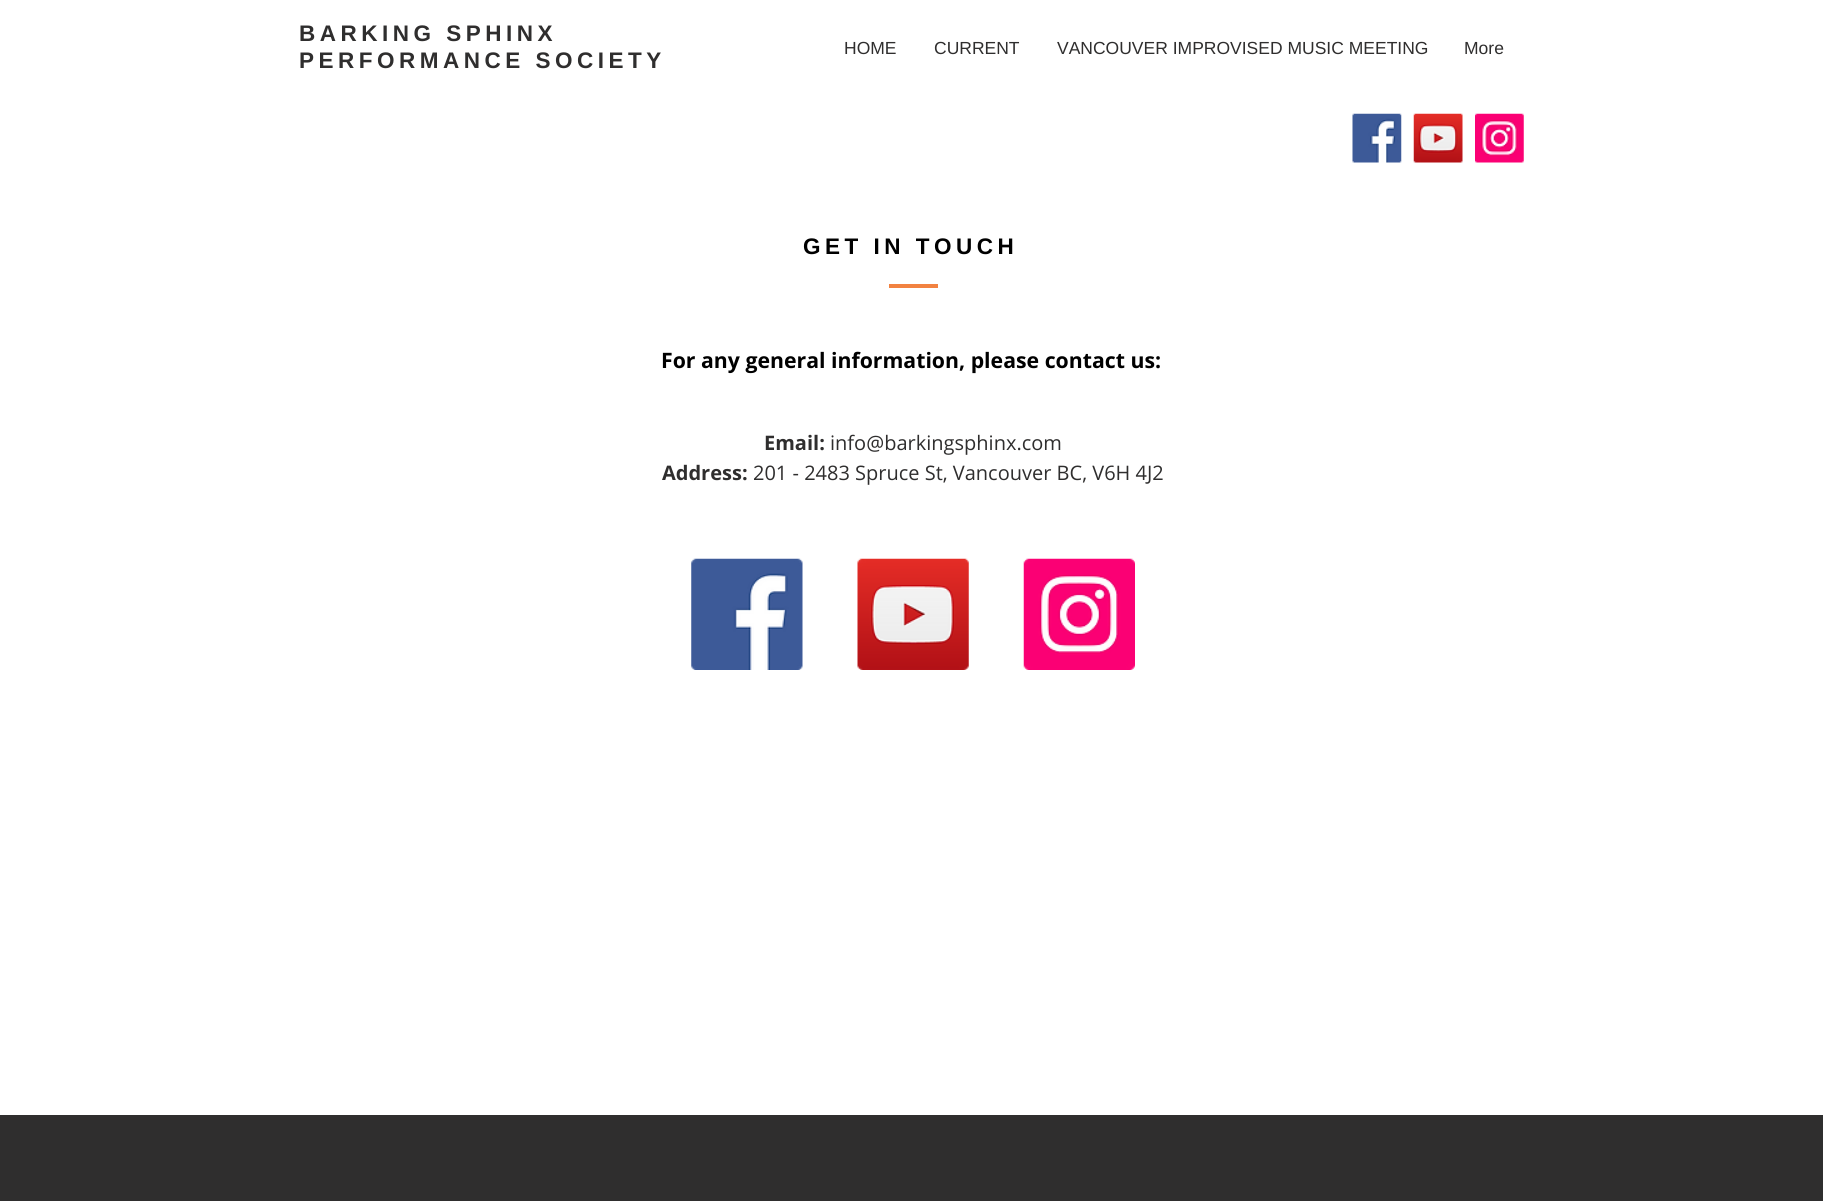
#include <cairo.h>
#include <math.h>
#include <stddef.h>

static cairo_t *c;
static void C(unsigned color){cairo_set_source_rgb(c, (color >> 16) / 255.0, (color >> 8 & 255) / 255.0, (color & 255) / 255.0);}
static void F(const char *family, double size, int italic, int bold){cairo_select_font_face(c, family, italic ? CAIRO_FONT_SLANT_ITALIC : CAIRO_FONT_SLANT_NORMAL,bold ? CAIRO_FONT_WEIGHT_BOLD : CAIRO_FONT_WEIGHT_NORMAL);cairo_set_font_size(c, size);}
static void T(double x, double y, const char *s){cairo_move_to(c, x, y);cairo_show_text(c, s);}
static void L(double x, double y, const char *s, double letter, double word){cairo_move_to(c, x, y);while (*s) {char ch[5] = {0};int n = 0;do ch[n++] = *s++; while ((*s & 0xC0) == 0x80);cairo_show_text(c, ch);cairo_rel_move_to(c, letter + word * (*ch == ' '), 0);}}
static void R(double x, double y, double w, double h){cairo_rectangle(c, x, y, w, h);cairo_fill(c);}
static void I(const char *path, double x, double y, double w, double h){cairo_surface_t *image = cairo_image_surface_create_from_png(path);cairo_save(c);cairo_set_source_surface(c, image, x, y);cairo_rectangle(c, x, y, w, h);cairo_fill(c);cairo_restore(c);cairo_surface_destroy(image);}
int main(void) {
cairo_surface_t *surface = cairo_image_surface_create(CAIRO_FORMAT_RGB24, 1823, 1201);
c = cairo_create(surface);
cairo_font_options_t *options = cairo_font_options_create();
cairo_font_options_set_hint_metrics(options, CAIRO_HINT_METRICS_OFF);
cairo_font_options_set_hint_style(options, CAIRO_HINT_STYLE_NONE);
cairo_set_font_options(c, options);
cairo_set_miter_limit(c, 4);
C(0xffffff);
cairo_paint(c);
F("Liberation Sans",22.5,0,1);
C(0x2f2e2e);
L(299,41,"BARKING SPHINX",4.5,0);
L(299,68,"PERFORMANCE SOCIETY",4.5,0);
F("Liberation Sans",17.5,0,0);
T(844,54,"HOME");
T(934,54,"CURRENT");
T(1057,54,"VANCOUVER IMPROVISED MUSIC MEETING");
T(1464,54,"More");
I("1.png",1352,113,50,50);
I("2.png",1413,113,50,50);
I("3.png",1475,113,49,50);
F("Liberation Sans",22.5,0,1);
C(0x000000);
L(803,254,"GET IN TOUCH",4.5,0);
C(0xf28241);
R(889,284,49,4);
F("Open Sans",21.25,0,1);
C(0x000000);
T(661,368,"For any general information, please contact us:");
F("Open Sans",20,0,1);
C(0x2f2e2e);
T(764,450,"Email:");
F("Open Sans",20,0,0);
T(830,450,"info@barkingsphinx.com");
F("Open Sans",20,0,1);
T(662,480,"Address:");
F("Open Sans",20,0,0);
T(753,480,"201 - 2483 Spruce St, Vancouver BC, V6H 4J2");
I("4.png",691,558,112,112);
I("5.png",857,558,112,112);
I("6.png",1023,558,112,112);
R(0,1115,1823,86);
cairo_surface_write_to_png(surface, "o.png");
cairo_font_options_destroy(options);
cairo_destroy(c);
cairo_surface_destroy(surface);
return 0;
}
